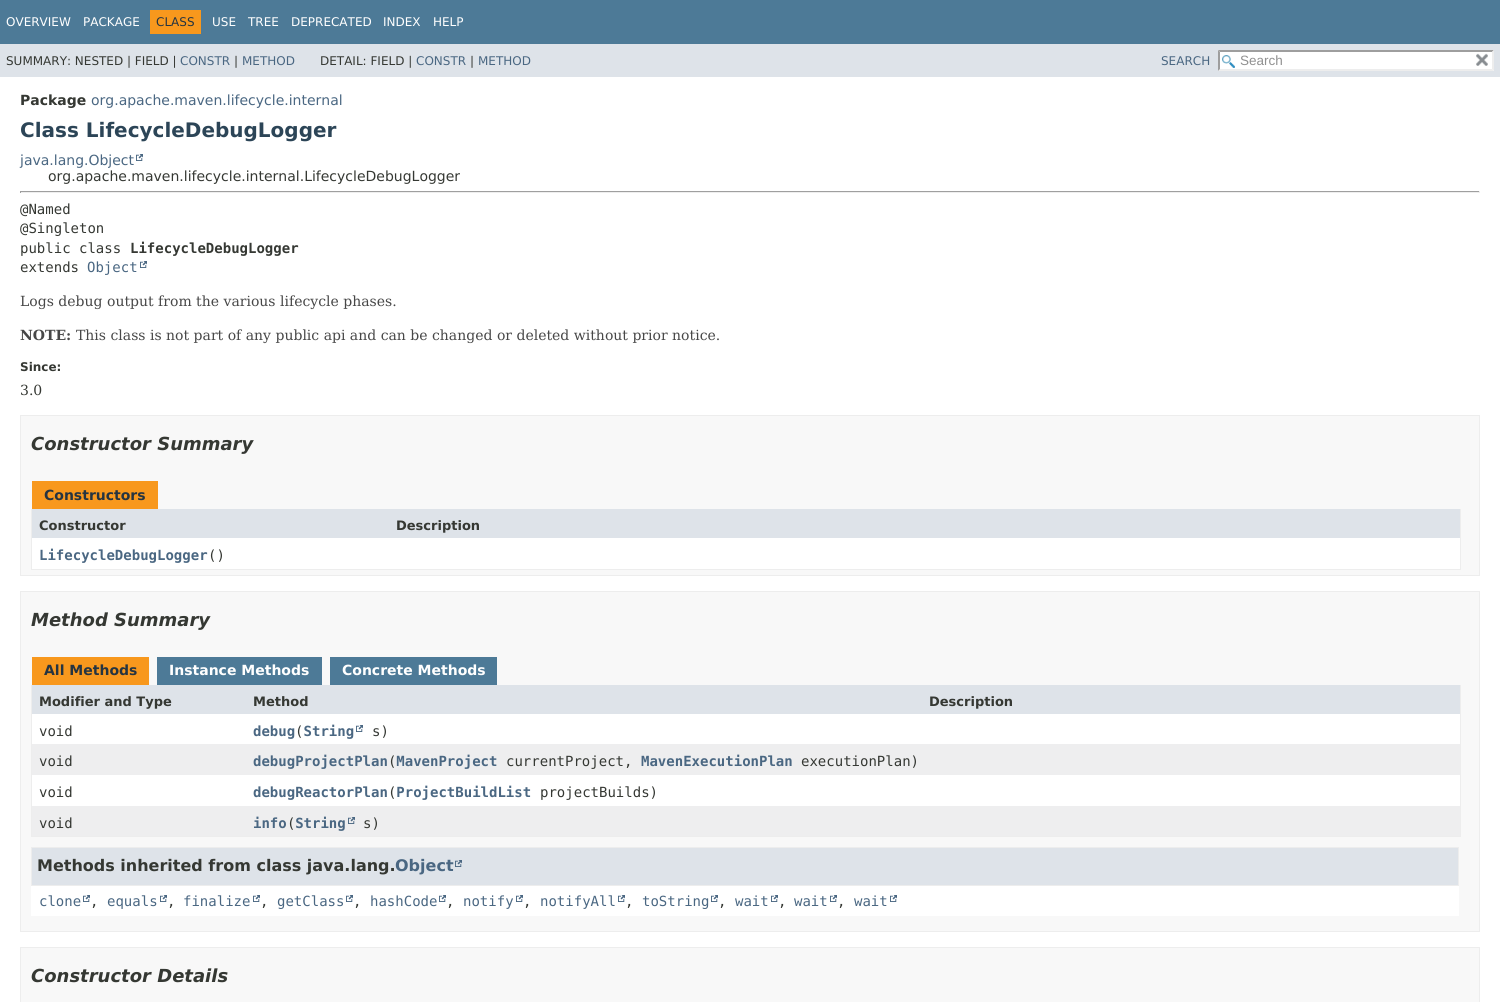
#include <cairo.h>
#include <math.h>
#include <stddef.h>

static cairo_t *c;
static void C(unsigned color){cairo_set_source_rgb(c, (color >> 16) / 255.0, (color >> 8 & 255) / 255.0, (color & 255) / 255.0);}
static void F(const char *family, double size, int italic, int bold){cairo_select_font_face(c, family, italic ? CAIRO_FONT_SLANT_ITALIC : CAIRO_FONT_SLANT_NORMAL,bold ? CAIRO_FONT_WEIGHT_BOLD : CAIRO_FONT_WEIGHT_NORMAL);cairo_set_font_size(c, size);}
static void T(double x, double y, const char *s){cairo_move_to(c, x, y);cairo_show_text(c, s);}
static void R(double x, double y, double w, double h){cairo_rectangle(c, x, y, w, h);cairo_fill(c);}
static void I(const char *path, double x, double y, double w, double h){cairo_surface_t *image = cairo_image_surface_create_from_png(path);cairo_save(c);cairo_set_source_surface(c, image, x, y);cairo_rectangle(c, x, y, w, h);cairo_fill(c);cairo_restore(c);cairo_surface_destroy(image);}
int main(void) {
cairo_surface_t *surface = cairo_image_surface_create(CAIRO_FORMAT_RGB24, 1500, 1002);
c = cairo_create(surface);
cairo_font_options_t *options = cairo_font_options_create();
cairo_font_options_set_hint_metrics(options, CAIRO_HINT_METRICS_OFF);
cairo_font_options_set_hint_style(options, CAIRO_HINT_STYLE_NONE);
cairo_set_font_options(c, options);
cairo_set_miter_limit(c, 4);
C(0xffffff);
cairo_paint(c);
C(0x4d7a97);
R(0,0,1500,44);
F("DejaVu Sans",12,0,0);
C(0xffffff);
T(6,26,"OVERVIEW");
T(83,26,"PACKAGE");
C(0xf8981d);
R(150,10,51,24);
C(0x253441);
T(156,26,"CLASS");
C(0xffffff);
T(212,26,"USE");
T(248,26,"TREE");
T(291,26,"DEPRECATED");
T(383,26,"INDEX");
T(433,26,"HELP");
C(0xdee3e9);
R(0,44,1500,33);
C(0x353833);
T(6,65,"SUMMARY: NESTED | FIELD |");
C(0x4a6782);
T(180,65,"CONSTR");
C(0x353833);
T(234,65,"|");
C(0x4a6782);
T(242,65,"METHOD");
C(0x353833);
T(320,65,"DETAIL: FIELD |");
C(0x4a6782);
T(416,65,"CONSTR");
C(0x353833);
T(470,65,"|");
C(0x4a6782);
T(478,65,"METHOD");
T(1161,65,"SEARCH");
C(0xffffff);
R(1218,50,276,21);
I("1.png",1222,55,13,13);
C(0x9e9e9e);
cairo_new_path(c);
cairo_move_to(c,1218,50);
cairo_line_to(c,1494,50);
cairo_line_to(c,1492,52);
cairo_line_to(c,1220,52);
cairo_close_path(c);
cairo_fill(c);
C(0xededed);
cairo_new_path(c);
cairo_move_to(c,1494,50);
cairo_line_to(c,1494,71);
cairo_line_to(c,1492,69);
cairo_line_to(c,1492,52);
cairo_close_path(c);
cairo_fill(c);
cairo_new_path(c);
cairo_move_to(c,1494,71);
cairo_line_to(c,1218,71);
cairo_line_to(c,1220,69);
cairo_line_to(c,1492,69);
cairo_close_path(c);
cairo_fill(c);
C(0x9e9e9e);
cairo_new_path(c);
cairo_move_to(c,1218,71);
cairo_line_to(c,1218,50);
cairo_line_to(c,1220,52);
cairo_line_to(c,1220,69);
cairo_close_path(c);
cairo_fill(c);
F("Liberation Sans",13.5,0,0);
C(0x909090);
T(1240,65,"Search");
I("2.png",1476,53,12,13);
F("DejaVu Sans",14,0,1);
C(0x353833);
T(20,105,"Package");
F("DejaVu Sans",14,0,0);
C(0x4a6782);
T(91,105,"org.apache.maven.lifecycle.internal");
F("DejaVu Sans",20,0,1);
C(0x2c4557);
T(20,137,"Class LifecycleDebugLogger");
F("DejaVu Sans",14,0,0);
C(0x4a6782);
T(20,165,"java.lang.Object");
I("3.png",136,154,7,7);
C(0x353833);
T(48,181,"org.apache.maven.lifecycle.internal.LifecycleDebugLogger");
C(0x9f9f9f);
R(20,191,1460,1);
C(0xeeeeee);
R(1479,191,1,2);
R(20,192,1460,1);
C(0x9f9f9f);
R(20,191,1,2);
F("DejaVu Sans Mono",14,0,0);
C(0x353833);
T(20,214,"@Named");
T(20,233,"@Singleton");
T(20,253,"public class");
F("DejaVu Sans Mono",14,0,1);
T(130,253,"LifecycleDebugLogger");
F("DejaVu Sans Mono",14,0,0);
T(20,272,"extends");
C(0x4a6782);
T(87,272,"Object");
I("3.png",140,261,7,7);
F("DejaVu Serif",14,0,0);
C(0x474747);
T(20,306,"Logs debug output from the various lifecycle phases.");
F("DejaVu Serif",14,0,1);
T(20,340,"NOTE:");
F("DejaVu Serif",14,0,0);
T(76,340,"This class is not part of any public api and can be changed or deleted without prior notice.");
F("DejaVu Sans",12,0,1);
C(0x353833);
T(20,371,"Since:");
F("DejaVu Serif",14,0,0);
T(20,395,"3.0");
C(0xf8f8f8);
cairo_rectangle(c,20.5,415.5,1459,160);
cairo_fill_preserve(c);
C(0xededed);
cairo_set_line_width(c,1);
cairo_stroke(c);
F("DejaVu Sans",18,1,1);
C(0x353833);
T(31,450,"Constructor Summary");
C(0xf8981d);
R(32,481,126,28);
F("DejaVu Sans",14,0,1);
C(0x253441);
T(44,500,"Constructors");
C(0xededed);
R(1460,509,1,61);
R(31,569,1430,1);
R(31,509,1,61);
C(0xdee3e9);
R(32,509,1428,29);
F("DejaVu Sans",13,0,1);
C(0x353833);
T(39,530,"Constructor");
T(396,530,"Description");
C(0xffffff);
R(32,538,1428,31);
F("DejaVu Sans Mono",14,0,1);
C(0x4a6782);
T(39,560,"LifecycleDebugLogger");
F("DejaVu Sans Mono",14,0,0);
C(0x353833);
T(208,560,"()");
C(0xf8f8f8);
cairo_rectangle(c,20.5,591.5,1459,340);
cairo_fill_preserve(c);
C(0xededed);
cairo_stroke(c);
F("DejaVu Sans",18,1,1);
C(0x353833);
T(31,626,"Method Summary");
C(0xf8981d);
R(32,657,117,28);
F("DejaVu Sans",14,0,1);
C(0x253441);
T(44,675,"All Methods");
C(0x4d7a97);
R(157,657,165,28);
C(0xffffff);
T(169,675,"Instance Methods");
C(0x4d7a97);
R(330,657,167,28);
C(0xffffff);
T(342,675,"Concrete Methods");
C(0xededed);
R(1460,685,1,152);
R(31,836,1430,1);
R(31,685,1,152);
C(0xdee3e9);
R(32,685,1428,29);
F("DejaVu Sans",13,0,1);
C(0x353833);
T(39,706,"Modifier and Type");
T(253,706,"Method");
T(929,706,"Description");
C(0xffffff);
R(32,714,1428,30);
F("DejaVu Sans Mono",14,0,0);
C(0x353833);
T(39,736,"void");
F("DejaVu Sans Mono",14,0,1);
C(0x4a6782);
T(253,736,"debug String");
F("DejaVu Sans Mono",14,0,0);
C(0x353833);
T(295,736,"(");
I("3.png",356,725,7,7);
T(372,736,"s)");
C(0xeeeeef);
R(32,744,1428,31);
C(0x353833);
T(39,766,"void");
F("DejaVu Sans Mono",14,0,1);
C(0x4a6782);
T(253,766,"debugProjectPlan MavenProject");
T(641,766,"MavenExecutionPlan");
F("DejaVu Sans Mono",14,0,0);
C(0x353833);
T(388,766,"(");
T(506,766,"currentProject,");
T(801,766,"executionPlan)");
C(0xffffff);
R(32,775,1428,31);
C(0x353833);
T(39,797,"void");
F("DejaVu Sans Mono",14,0,1);
C(0x4a6782);
T(253,797,"debugReactorPlan ProjectBuildList");
F("DejaVu Sans Mono",14,0,0);
C(0x353833);
T(388,797,"(");
T(540,797,"projectBuilds)");
C(0xeeeeef);
R(32,806,1428,30);
C(0x353833);
T(39,828,"void");
F("DejaVu Sans Mono",14,0,1);
C(0x4a6782);
T(253,828,"info String");
F("DejaVu Sans Mono",14,0,0);
C(0x353833);
T(287,828,"(");
I("4.png",348,817,7,7);
T(363,828,"s)");
C(0xffffff);
R(31,886,1428,30);
C(0xdee3e9);
cairo_rectangle(c,31.5,847.5,1427,38);
cairo_fill_preserve(c);
C(0xededed);
cairo_stroke(c);
F("DejaVu Sans",16,0,1);
C(0x353833);
T(37,871,"Methods inherited from class java.lang.");
C(0x4a6782);
T(395,871,"Object");
I("5.png",455,860,7,7);
F("DejaVu Sans Mono",14,0,0);
T(39,906,"clone");
I("3.png",83,895,7,7);
C(0x353833);
T(90,906,",");
C(0x4a6782);
T(107,906,"equals");
I("3.png",160,895,7,7);
C(0x353833);
T(167,906,",");
C(0x4a6782);
T(183,906,"finalize");
I("3.png",253,895,7,7);
C(0x353833);
T(260,906,",");
C(0x4a6782);
T(277,906,"getClass");
I("3.png",346,895,7,7);
C(0x353833);
T(353,906,",");
C(0x4a6782);
T(370,906,"hashCode");
I("3.png",439,895,7,7);
C(0x353833);
T(446,906,",");
C(0x4a6782);
T(463,906,"notify");
I("3.png",516,895,7,7);
C(0x353833);
T(523,906,",");
C(0x4a6782);
T(540,906,"notifyAll");
I("3.png",618,895,7,7);
C(0x353833);
T(625,906,",");
C(0x4a6782);
T(642,906,"toString");
I("3.png",711,895,7,7);
C(0x353833);
T(718,906,",");
C(0x4a6782);
T(735,906,"wait");
I("3.png",771,895,7,7);
C(0x353833);
T(778,906,",");
C(0x4a6782);
T(794,906,"wait");
I("3.png",830,895,7,7);
C(0x353833);
T(837,906,",");
C(0x4a6782);
T(854,906,"wait");
I("3.png",890,895,7,7);
C(0xf8f8f8);
cairo_rectangle(c,20.5,947.5,1459,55);
cairo_fill_preserve(c);
C(0xededed);
cairo_stroke(c);
F("DejaVu Sans",18,1,1);
C(0x353833);
T(31,982,"Constructor Details");
cairo_surface_write_to_png(surface, "o.png");
cairo_font_options_destroy(options);
cairo_destroy(c);
cairo_surface_destroy(surface);
return 0;
}
